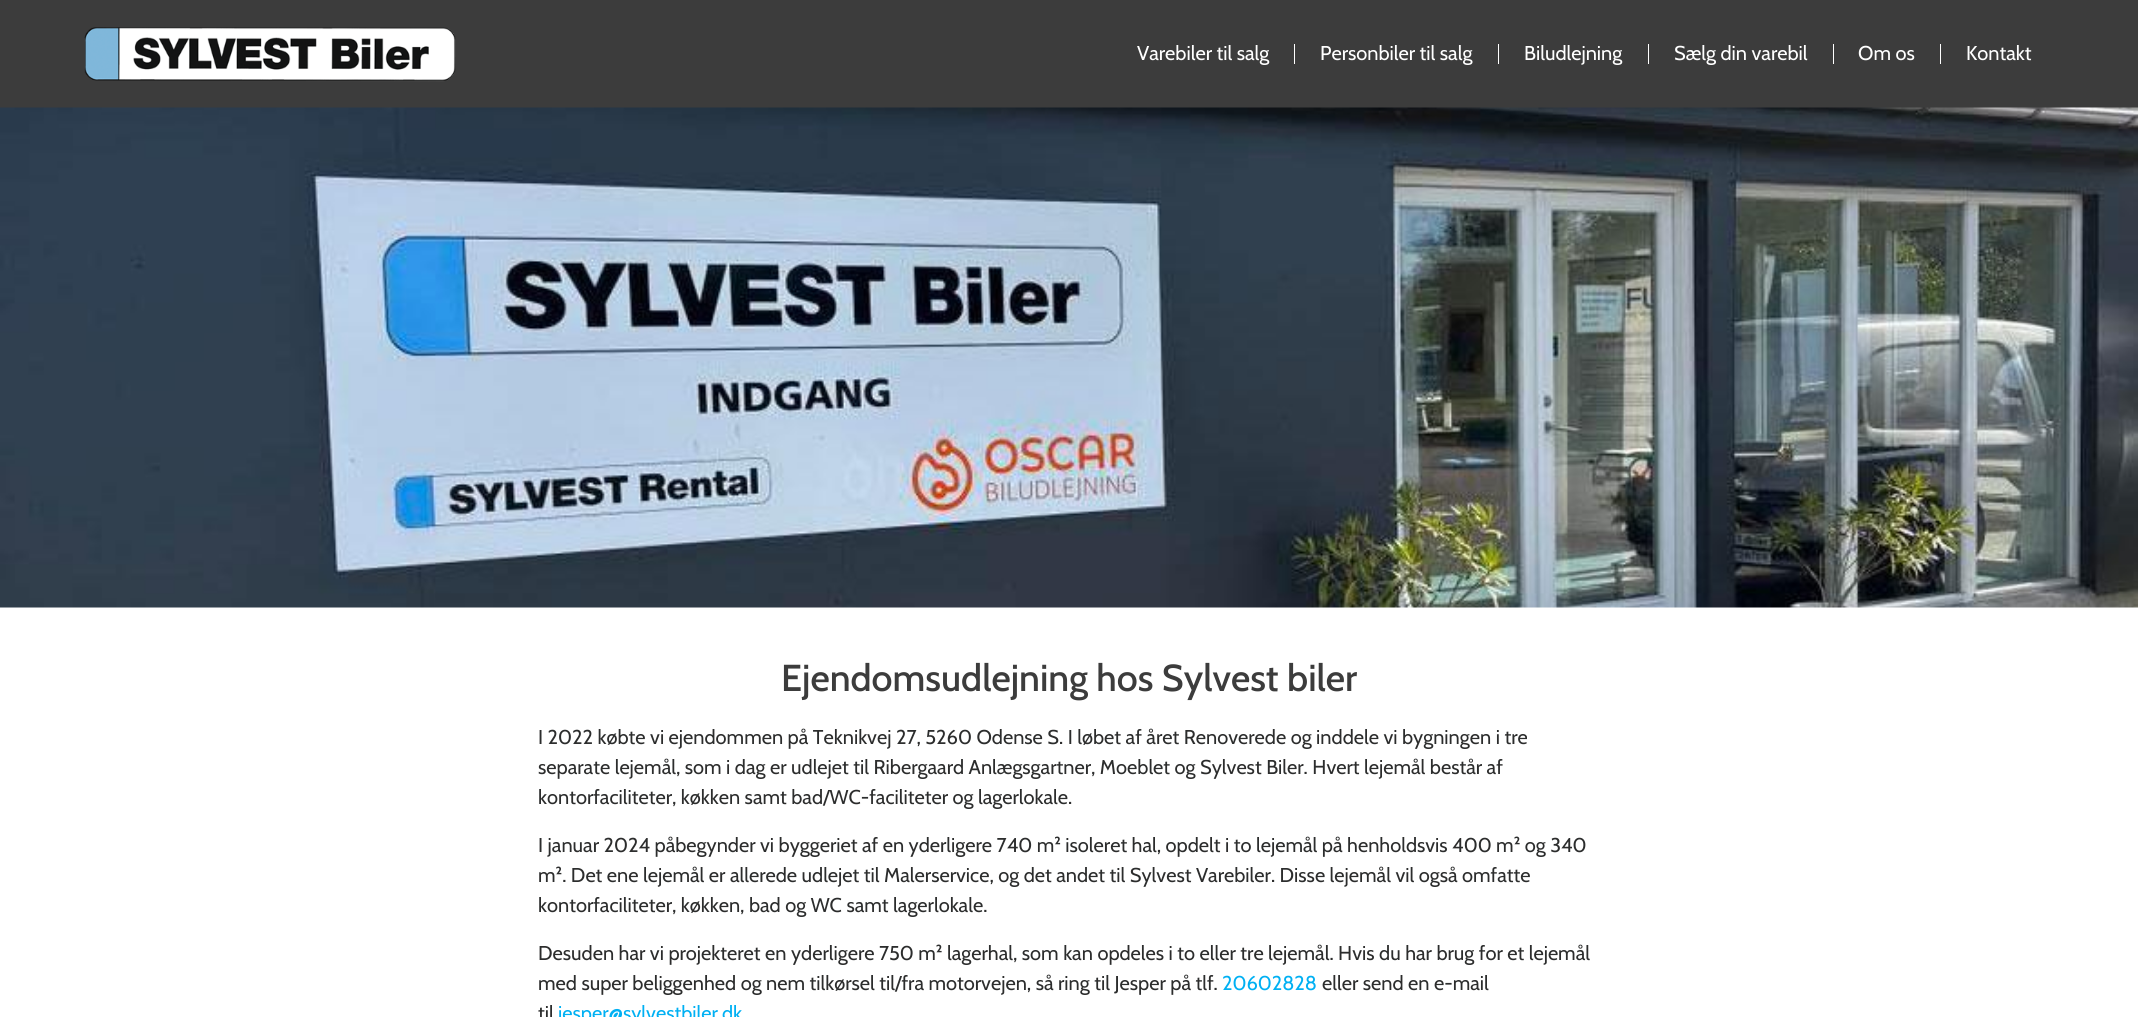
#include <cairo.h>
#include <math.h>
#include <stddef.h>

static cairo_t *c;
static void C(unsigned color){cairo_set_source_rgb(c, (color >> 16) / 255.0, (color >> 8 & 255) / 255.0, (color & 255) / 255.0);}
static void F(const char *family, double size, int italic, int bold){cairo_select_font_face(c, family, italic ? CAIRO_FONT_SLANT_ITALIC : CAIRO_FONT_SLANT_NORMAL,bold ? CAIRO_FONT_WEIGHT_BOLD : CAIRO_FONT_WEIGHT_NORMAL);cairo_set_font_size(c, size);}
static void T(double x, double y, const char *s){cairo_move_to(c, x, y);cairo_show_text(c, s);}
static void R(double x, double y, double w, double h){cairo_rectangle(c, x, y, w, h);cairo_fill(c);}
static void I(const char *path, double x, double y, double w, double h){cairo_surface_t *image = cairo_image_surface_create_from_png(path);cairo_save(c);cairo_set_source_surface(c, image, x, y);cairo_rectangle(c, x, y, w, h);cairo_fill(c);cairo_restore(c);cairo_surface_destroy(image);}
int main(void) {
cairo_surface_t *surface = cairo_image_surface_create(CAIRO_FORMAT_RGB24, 2138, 1017);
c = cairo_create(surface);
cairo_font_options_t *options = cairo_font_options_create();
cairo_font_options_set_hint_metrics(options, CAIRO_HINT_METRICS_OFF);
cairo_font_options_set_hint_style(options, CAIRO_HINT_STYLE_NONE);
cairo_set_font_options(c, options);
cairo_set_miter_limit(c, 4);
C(0xffffff);
cairo_paint(c);
C(0x3c3c3c);
R(0,0,2138,108);
I("1.png",84,27,372,55);
F("Cabin",20,0,0);
C(0xffffff);
T(1137,60,"Varebiler til salg");
R(1294,44,1,20);
T(1320,60,"Personbiler til salg");
R(1498,44,1,20);
T(1524,60,"Biludlejning");
R(1648,44,1,20);
T(1674,60,"Sælg din varebil");
R(1833,44,1,20);
T(1858,60,"Om os");
R(1940,44,1,20);
T(1966,60,"Kontakt");
I("2.png",0,107,2138,501);
F("Cabin Medium",37.5,0,0);
C(0x3c3c3c);
T(781,691,"Ejendomsudlejning hos Sylvest biler");
F("Cabin",20,0,0);
C(0x2c2d2d);
T(538,744,"I 2022 købte vi ejendommen på Teknikvej 27, 5260 Odense S. I løbet af året Renoverede og inddele vi bygningen i tre");
T(538,774,"separate lejemål, som i dag er udlejet til Ribergaard Anlægsgartner, Moeblet og Sylvest Biler. Hvert lejemål består af");
T(538,804,"kontorfaciliteter, køkken samt bad/WC-faciliteter og lagerlokale.");
T(538,852,"I januar 2024 påbegynder vi byggeriet af en yderligere 740 m² isoleret hal, opdelt i to lejemål på henholdsvis 400 m² og 340");
T(538,882,"m². Det ene lejemål er allerede udlejet til Malerservice, og det andet til Sylvest Varebiler. Disse lejemål vil også omfatte");
T(538,912,"kontorfaciliteter, køkken, bad og WC samt lagerlokale.");
T(538,960,"Desuden har vi projekteret en yderligere 750 m² lagerhal, som kan opdeles i to eller tre lejemål. Hvis du har brug for et lejemål");
T(538,990,"med super beliggenhed og nem tilkørsel til/fra motorvejen, så ring til Jesper på tlf.");
C(0x00b0f3);
T(1222,990,"20602828");
C(0x2c2d2d);
T(1322,990,"eller send en e-mail");
T(538,1020,"til");
C(0x00b0f3);
T(558,1020,"jesper@sylvestbiler.dk");
cairo_surface_write_to_png(surface, "o.png");
cairo_font_options_destroy(options);
cairo_destroy(c);
cairo_surface_destroy(surface);
return 0;
}
